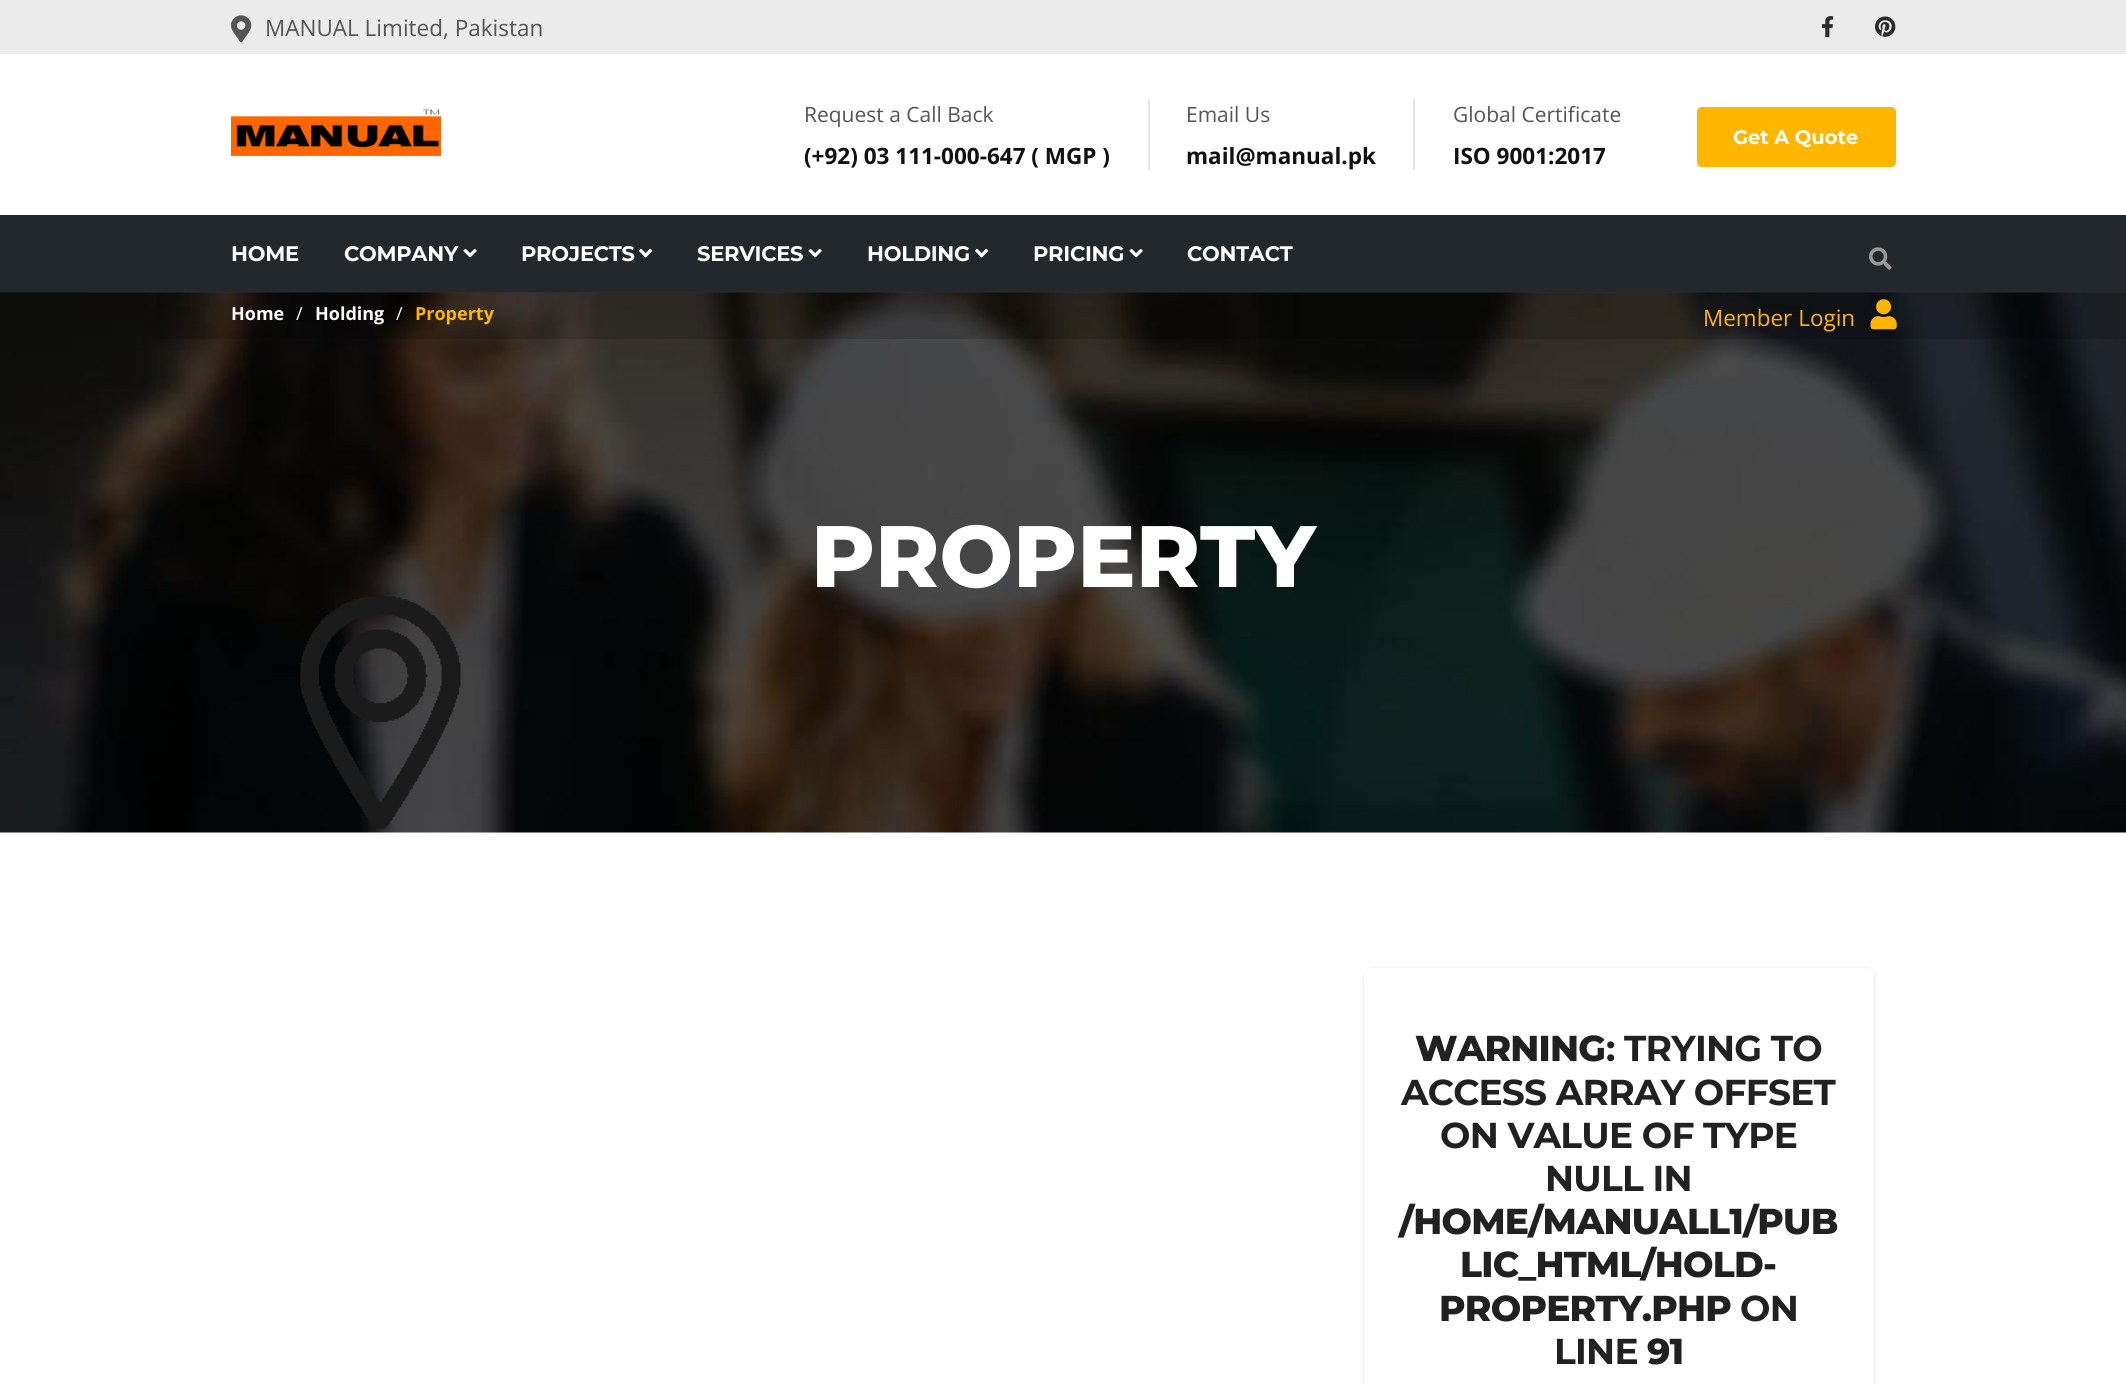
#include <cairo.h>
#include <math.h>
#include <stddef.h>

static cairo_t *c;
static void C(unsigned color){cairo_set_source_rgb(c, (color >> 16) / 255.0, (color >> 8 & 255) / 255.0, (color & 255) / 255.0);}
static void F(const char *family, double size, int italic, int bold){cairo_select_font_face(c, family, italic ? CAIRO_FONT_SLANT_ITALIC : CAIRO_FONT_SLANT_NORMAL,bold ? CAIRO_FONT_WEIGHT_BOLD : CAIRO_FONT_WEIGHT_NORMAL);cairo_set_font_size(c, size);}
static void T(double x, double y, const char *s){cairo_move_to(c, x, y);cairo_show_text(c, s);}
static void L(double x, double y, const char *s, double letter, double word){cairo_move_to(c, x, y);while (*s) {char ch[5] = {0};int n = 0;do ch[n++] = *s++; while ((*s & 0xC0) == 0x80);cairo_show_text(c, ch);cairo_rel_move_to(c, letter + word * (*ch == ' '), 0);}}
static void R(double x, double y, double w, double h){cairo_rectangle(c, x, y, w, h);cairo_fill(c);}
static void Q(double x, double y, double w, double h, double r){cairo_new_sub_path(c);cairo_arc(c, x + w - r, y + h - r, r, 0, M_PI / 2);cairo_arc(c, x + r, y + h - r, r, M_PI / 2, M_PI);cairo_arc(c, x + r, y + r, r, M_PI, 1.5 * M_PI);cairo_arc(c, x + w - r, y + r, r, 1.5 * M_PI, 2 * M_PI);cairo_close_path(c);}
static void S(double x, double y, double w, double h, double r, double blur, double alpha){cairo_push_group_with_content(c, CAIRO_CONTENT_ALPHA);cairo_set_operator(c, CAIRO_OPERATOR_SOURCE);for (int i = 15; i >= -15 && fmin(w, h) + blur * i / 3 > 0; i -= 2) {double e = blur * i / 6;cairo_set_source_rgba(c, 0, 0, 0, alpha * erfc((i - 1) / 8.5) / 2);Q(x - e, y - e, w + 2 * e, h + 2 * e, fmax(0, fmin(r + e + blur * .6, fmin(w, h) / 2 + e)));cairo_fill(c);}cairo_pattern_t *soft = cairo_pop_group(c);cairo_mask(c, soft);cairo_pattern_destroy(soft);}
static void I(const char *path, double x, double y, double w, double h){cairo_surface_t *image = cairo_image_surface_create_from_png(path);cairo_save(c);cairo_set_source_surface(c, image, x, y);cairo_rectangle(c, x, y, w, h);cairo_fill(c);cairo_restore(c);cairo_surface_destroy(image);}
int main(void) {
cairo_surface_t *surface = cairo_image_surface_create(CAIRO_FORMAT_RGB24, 2126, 1384);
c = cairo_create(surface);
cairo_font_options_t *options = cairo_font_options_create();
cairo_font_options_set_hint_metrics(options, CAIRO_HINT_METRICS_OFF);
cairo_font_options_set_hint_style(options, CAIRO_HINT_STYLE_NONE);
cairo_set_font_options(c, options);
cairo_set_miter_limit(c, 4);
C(0xffffff);
cairo_paint(c);
C(0xebebeb);
R(0,0,2126,54);
I("1.png",231,15,21,28);
F("Open Sans",22.5,0,0);
C(0x555555);
T(265,36,"MANUAL Limited, Pakistan");
I("2.png",1821,16,13,22);
I("3.png",1875,16,21,21);
I("4.png",231,109,210,47);
C(0xe6e6e6);
R(1148,99,2,71);
F("Open Sans",21,0,0);
C(0x555555);
T(804,122,"Request a Call Back");
F("Open Sans",22.5,0,1);
C(0x111111);
T(804,164,"(+92) 03 111-000-647 ( MGP )");
C(0xe6e6e6);
R(1413,99,2,71);
F("Open Sans",21,0,0);
C(0x555555);
T(1186,122,"Email Us");
F("Open Sans",22.5,0,1);
C(0x111111);
T(1186,164,"mail@manual.pk");
F("Open Sans",21,0,0);
C(0x555555);
T(1453,122,"Global Certificate");
F("Open Sans",22.5,0,1);
C(0x111111);
T(1453,164,"ISO 9001:2017");
C(0xffb600);
Q(1697,107,199,60,5);
cairo_fill(c);
F("Montserrat",19.5,0,1);
C(0xffffff);
T(1733,144,"Get A Quote");
C(0x23282d);
R(0,215,2126,78);
F("Montserrat",21,0,1);
C(0xffffff);
L(231,261,"HOME",-.25,0);
L(344,261,"COMPANY",-.25,0);
I("5.png",463,248,14,10);
L(521,261,"PROJECTS",-.25,0);
I("6.png",639,248,14,10);
L(697,261,"SERVICES",-.25,0);
I("5.png",808,248,14,10);
L(867,261,"HOLDING",-.25,0);
I("6.png",975,248,14,10);
L(1033,261,"PRICING",-.25,0);
I("5.png",1129,248,14,10);
L(1187,261,"CONTACT",-.25,0);
I("7.png",1869,247,23,23);
I("8.png",0,292,2126,541);
cairo_set_source_rgba(c,0,0,0,0.15);
R(157,293,1969,46);
F("Open Sans",18,0,1);
C(0xffffff);
T(231,320,"Home");
F("Open Sans",18,0,0);
T(296,320,"/");
F("Open Sans",18,0,1);
T(315,320,"Holding");
F("Open Sans",18,0,0);
T(396,320,"/");
F("Open Sans",18,0,1);
C(0xffb600);
T(415,320,"Property");
F("Open Sans",22.5,0,0);
T(1703,326,"Member Login");
I("9.png",1870,299,27,31);
F("Montserrat ExtraBold",87,0,0);
C(0xffffff);
T(811,587,"PROPERTY");
I("10.png",300,596,161,233);
C(0x000000);
S(1364,969,510,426,8,1.5,.06);
S(1364,969,510,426,8,2,.1);
C(0xffffff);
Q(1364,968,510,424,8);
cairo_fill(c);
F("Montserrat ExtraBold",36,0,0);
C(0x212121);
L(1415,1061,"WARNING",-.75,0);
F("Montserrat",36,0,1);
L(1606,1061,": TRYING TO",-.75,0);
L(1401,1105,"ACCESS ARRAY OFFSET",-.75,0);
L(1440,1148,"ON VALUE OF TYPE",-.75,0);
L(1545,1191,"NULL IN",-.75,0);
F("Montserrat ExtraBold",36,0,0);
L(1399,1234,"/HOME/MANUALL1/PUB",-.75,0);
L(1460,1277,"LIC_HTML/HOLD-",-.75,0);
L(1439,1321,"PROPERTY.PHP",-.75,0);
F("Montserrat",36,0,1);
L(1740,1321,"ON",-.75,0);
L(1554,1364,"LINE",-.75,0);
F("Montserrat ExtraBold",36,0,0);
L(1647,1364,"91",-.75,0);
cairo_surface_write_to_png(surface, "o.png");
cairo_font_options_destroy(options);
cairo_destroy(c);
cairo_surface_destroy(surface);
return 0;
}
